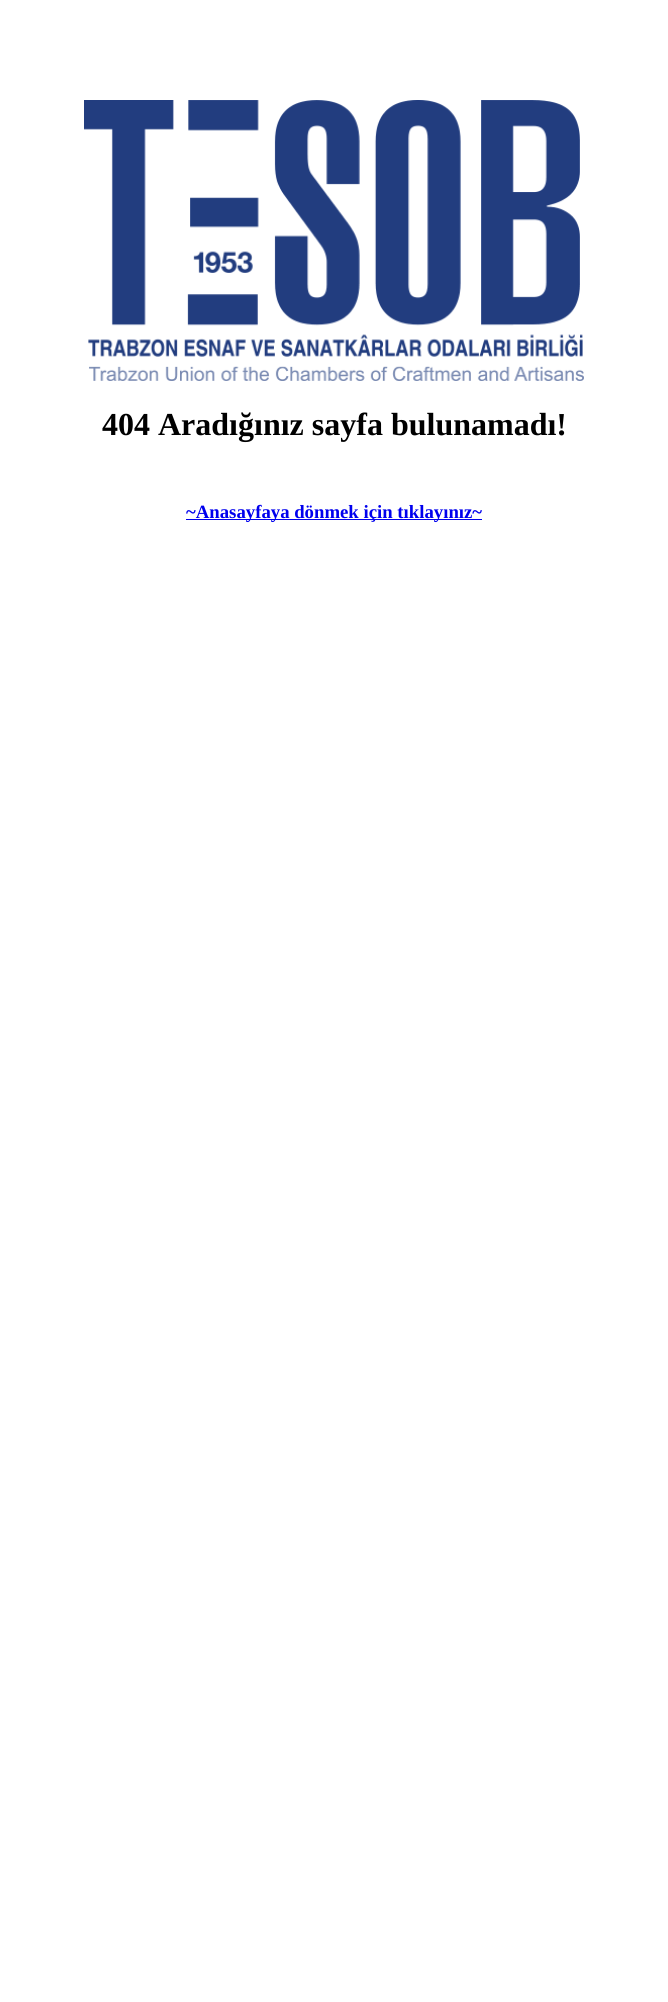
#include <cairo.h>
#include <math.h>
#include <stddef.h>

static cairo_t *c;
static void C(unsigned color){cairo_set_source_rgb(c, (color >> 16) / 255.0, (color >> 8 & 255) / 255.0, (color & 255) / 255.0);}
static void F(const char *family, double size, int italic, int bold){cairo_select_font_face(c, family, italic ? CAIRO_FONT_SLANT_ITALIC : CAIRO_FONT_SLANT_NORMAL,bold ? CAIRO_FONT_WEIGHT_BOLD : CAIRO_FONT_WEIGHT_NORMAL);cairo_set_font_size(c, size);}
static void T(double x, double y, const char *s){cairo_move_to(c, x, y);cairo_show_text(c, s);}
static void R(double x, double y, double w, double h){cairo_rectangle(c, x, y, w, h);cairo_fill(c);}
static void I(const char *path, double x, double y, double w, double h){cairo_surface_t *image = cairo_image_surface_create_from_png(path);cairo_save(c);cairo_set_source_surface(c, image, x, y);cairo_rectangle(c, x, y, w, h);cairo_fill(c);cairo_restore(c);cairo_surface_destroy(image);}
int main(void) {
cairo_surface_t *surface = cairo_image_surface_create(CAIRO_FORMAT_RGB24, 668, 2002);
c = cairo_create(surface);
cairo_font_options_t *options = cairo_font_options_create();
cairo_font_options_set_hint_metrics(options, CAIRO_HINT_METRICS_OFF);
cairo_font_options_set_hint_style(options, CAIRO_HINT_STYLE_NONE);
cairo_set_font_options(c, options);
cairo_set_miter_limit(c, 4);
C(0xffffff);
cairo_paint(c);
I("1.png",84,100,500,281);
F("Liberation Serif",32,0,1);
C(0x000000);
T(102,435,"404 Aradığınız sayfa bulunamadı!");
C(0x0000ee);
R(186,519,296,1);
F("Liberation Serif",18.75,0,1);
T(186,518,"~Anasayfaya dönmek için tıklayınız~");
cairo_surface_write_to_png(surface, "o.png");
cairo_font_options_destroy(options);
cairo_destroy(c);
cairo_surface_destroy(surface);
return 0;
}
